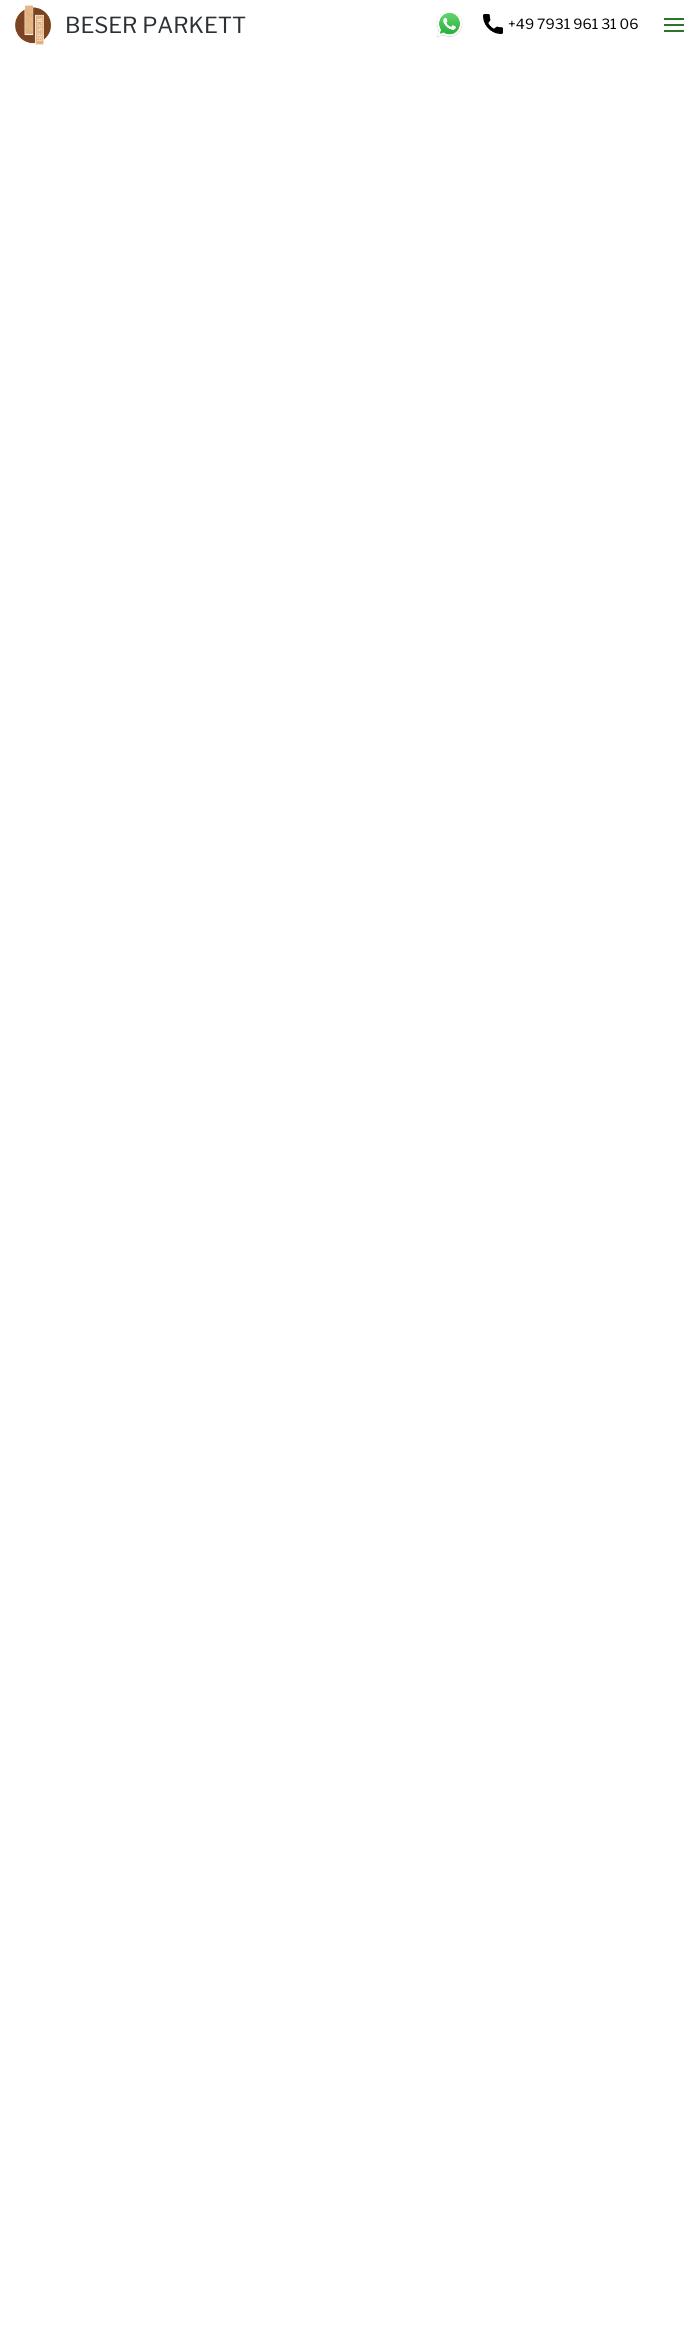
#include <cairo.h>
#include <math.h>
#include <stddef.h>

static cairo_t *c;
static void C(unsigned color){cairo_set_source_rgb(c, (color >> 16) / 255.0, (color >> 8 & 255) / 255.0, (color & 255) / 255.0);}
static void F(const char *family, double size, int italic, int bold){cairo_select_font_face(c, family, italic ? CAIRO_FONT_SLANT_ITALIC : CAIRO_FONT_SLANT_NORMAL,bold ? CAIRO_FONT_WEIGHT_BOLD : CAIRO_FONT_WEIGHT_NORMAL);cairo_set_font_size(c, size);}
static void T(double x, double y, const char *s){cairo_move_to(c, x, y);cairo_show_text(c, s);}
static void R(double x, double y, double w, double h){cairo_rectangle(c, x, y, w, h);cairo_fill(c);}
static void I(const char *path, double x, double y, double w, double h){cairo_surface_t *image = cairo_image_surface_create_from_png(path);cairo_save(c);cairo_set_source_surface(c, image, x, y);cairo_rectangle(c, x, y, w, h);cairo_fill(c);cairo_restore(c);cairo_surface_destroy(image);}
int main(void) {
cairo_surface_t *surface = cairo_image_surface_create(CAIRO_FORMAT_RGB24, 699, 2325);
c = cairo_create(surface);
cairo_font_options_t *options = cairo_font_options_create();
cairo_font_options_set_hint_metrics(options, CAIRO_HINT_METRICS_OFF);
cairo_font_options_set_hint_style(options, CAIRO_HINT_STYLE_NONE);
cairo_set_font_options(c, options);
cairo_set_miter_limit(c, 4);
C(0xffffff);
cairo_paint(c);
I("1.png",15,5,36,40);
F("Libre Franklin Thin",22,0,0);
C(0x2d3134);
T(65,33,"BESER PARKETT");
I("2.png",436,13,27,25);
I("3.png",483,14,20,20);
F("Libre Franklin Thin",14,0,0);
C(0x000000);
T(508,29,"+49 7931 961 31 06");
C(0x2a7527);
R(664,24,20,2);
R(664,18,20,2);
R(664,30,20,2);
cairo_surface_write_to_png(surface, "o.png");
cairo_font_options_destroy(options);
cairo_destroy(c);
cairo_surface_destroy(surface);
return 0;
}
